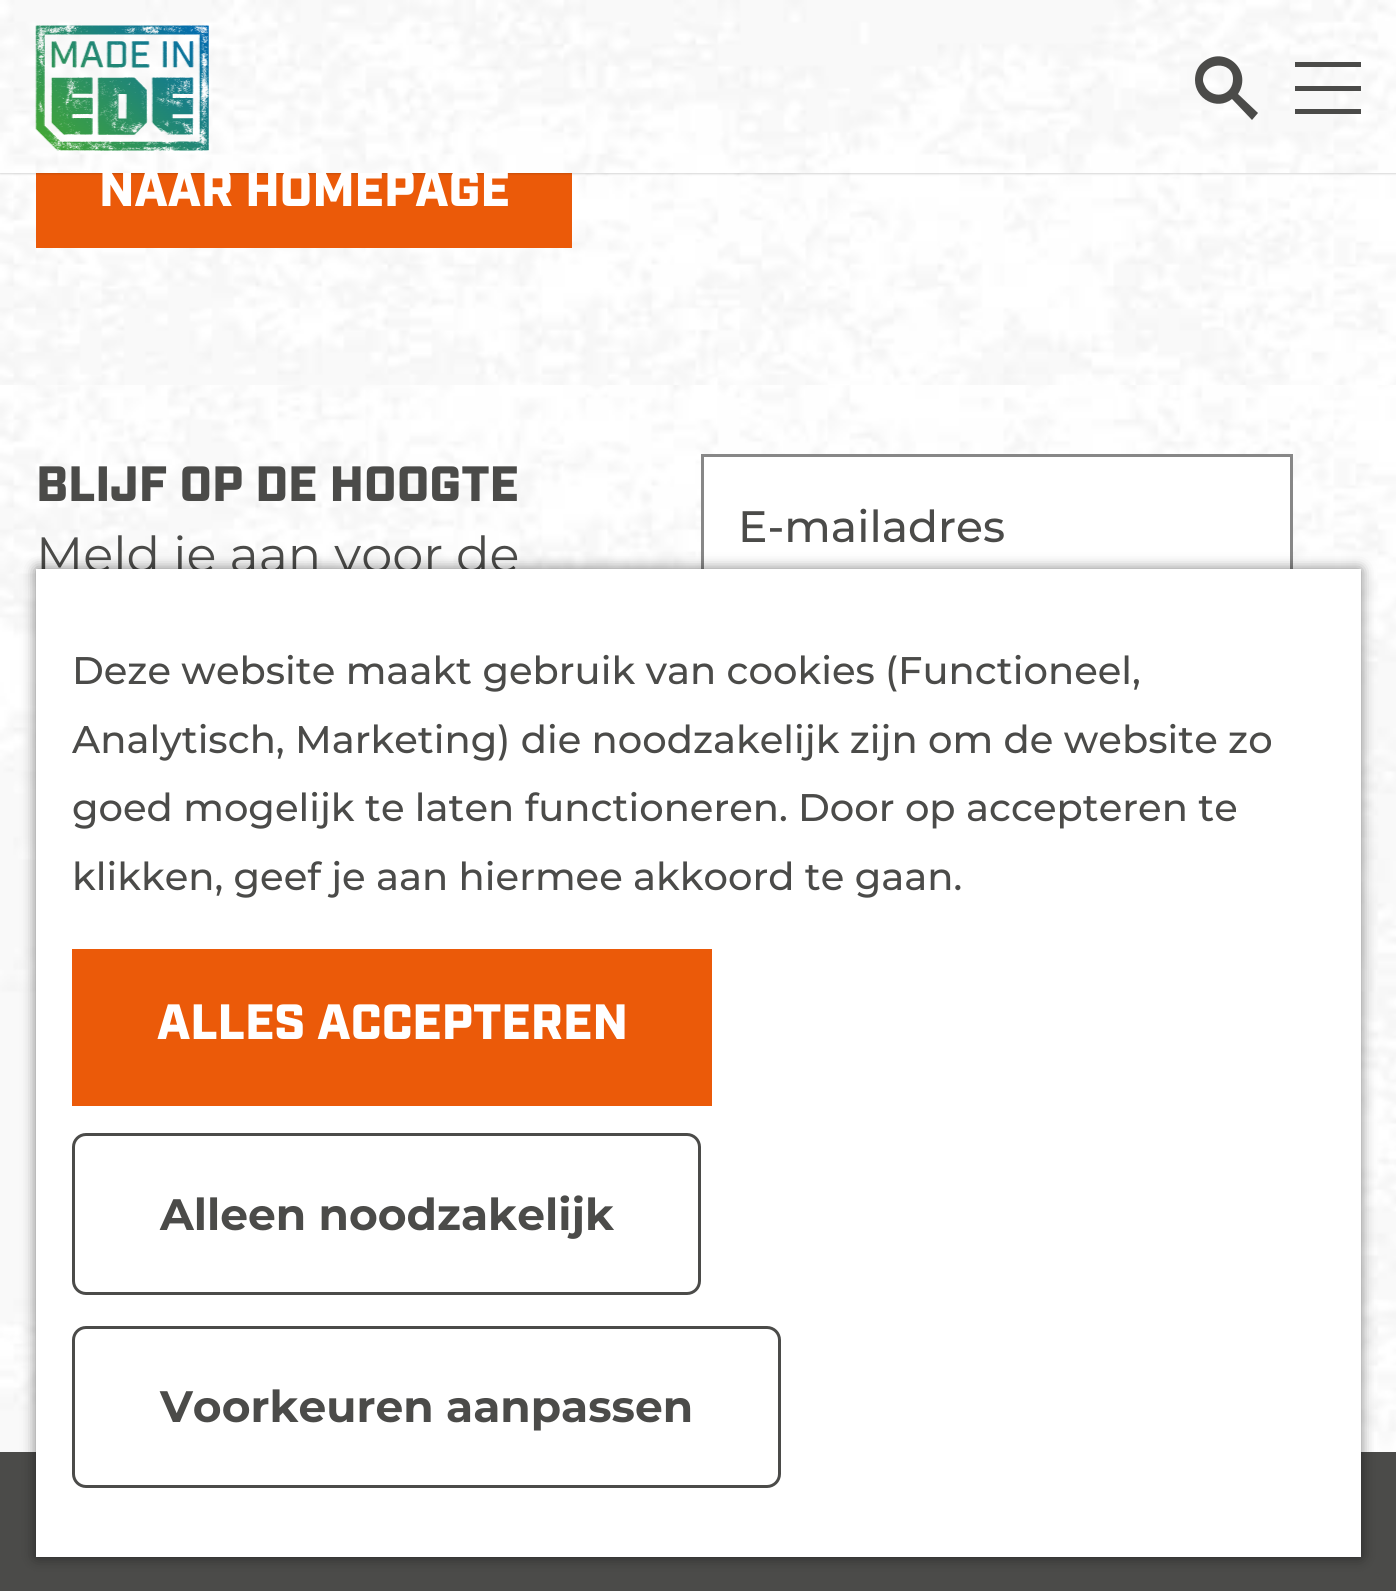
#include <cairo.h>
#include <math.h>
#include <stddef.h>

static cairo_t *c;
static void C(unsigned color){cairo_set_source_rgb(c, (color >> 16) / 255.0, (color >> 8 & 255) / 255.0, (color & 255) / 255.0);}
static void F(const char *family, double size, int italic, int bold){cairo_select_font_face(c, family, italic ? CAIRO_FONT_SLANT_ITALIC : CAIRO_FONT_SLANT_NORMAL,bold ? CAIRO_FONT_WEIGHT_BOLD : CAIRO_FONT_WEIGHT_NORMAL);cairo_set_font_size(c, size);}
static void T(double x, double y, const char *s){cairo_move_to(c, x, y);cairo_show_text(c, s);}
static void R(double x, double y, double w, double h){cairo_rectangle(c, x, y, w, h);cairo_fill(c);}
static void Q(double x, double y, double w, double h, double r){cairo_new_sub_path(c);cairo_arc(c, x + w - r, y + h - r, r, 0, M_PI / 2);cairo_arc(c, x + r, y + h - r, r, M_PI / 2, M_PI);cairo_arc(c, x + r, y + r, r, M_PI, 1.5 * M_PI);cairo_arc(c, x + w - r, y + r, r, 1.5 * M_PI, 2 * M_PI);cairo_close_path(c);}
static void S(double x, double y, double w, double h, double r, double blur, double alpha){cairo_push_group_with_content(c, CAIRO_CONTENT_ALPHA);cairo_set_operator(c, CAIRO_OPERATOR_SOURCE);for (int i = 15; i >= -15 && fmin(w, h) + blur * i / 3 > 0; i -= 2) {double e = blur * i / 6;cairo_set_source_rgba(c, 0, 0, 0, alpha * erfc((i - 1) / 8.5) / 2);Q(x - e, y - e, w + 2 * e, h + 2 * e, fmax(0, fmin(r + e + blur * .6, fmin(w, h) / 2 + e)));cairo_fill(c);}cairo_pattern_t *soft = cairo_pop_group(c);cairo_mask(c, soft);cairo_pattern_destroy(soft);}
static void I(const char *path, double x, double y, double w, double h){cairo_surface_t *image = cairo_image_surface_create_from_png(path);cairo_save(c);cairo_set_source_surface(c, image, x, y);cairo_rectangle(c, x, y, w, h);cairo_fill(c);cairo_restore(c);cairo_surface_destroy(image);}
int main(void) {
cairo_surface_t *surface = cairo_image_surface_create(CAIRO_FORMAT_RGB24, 1396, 1591);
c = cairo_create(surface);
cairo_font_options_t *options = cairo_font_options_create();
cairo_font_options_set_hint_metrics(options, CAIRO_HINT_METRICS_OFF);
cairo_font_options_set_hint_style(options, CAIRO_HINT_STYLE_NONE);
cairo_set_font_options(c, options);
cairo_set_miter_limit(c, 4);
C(0xffffff);
cairo_paint(c);
I("3.png",0,173,1396,212);
C(0xeb5a09);
R(36,173,536,75);
C(0x000000);
S(0,0,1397,173,0,1.5,.3);
F("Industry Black",49.5,0,0);
C(0xffffff);
T(99,206,"NAAR HOMEPAGE");
I("1.png",0,0,1396,173);
I("2.png",35,25,174,126);
C(0x4b4b49);
cairo_new_path(c);
cairo_move_to(c,1195,80);
cairo_curve_to(c,1195,99,1217,111,1232,99);
cairo_line_to(c,1252,120);
cairo_line_to(c,1258,113);
cairo_line_to(c,1238,94);
cairo_curve_to(c,1254,69,1222,43,1201,64);
cairo_curve_to(c,1197,68,1195,74,1195,80);
cairo_close_path(c);
cairo_move_to(c,1203,80);
cairo_curve_to(c,1203,62,1233,60,1233,79);
cairo_curve_to(c,1233,95,1215,100,1206,88);
cairo_curve_to(c,1205,86,1203,83,1203,80);
cairo_close_path(c);
cairo_fill(c);
cairo_new_path(c);
cairo_move_to(c,1295,62);
cairo_line_to(c,1361,62);
cairo_line_to(c,1361,67);
cairo_line_to(c,1295,67);
cairo_close_path(c);
cairo_move_to(c,1295,86);
cairo_line_to(c,1361,86);
cairo_line_to(c,1361,91);
cairo_line_to(c,1295,91);
cairo_close_path(c);
cairo_move_to(c,1295,109);
cairo_line_to(c,1361,109);
cairo_line_to(c,1361,114);
cairo_line_to(c,1295,114);
cairo_close_path(c);
cairo_fill(c);
I("4.png",0,385,1396,1067);
T(36,501,"BLIJF OP DE HOOGTE");
F("Montserrat",49.5,0,0);
T(36,572,"Meld je aan voor de");
C(0xffffff);
R(704,457,586,112);
cairo_rectangle(c,702.5,455.5,589,143);
C(0x878787);
cairo_set_line_width(c,3);
cairo_stroke(c);
F("Montserrat Medium",44,0,0);
C(0x4b4b49);
T(738,542,"E-mailadres");
R(0,1452,1396,139);
C(0x000000);
S(36,569,1325,988,0,7,.5);
C(0xffffff);
R(36,569,1325,988);
F("Montserrat Medium",38.5,0,0);
C(0x4b4b49);
T(72,684,"Deze website maakt gebruik van cookies (Functioneel,");
T(72,753,"Analytisch, Marketing) die noodzakelijk zijn om de website zo");
T(72,821,"goed mogelijk te laten functioneren. Door op accepteren te");
T(72,890,"klikken, geef je aan hiermee akkoord te gaan.");
C(0xeb5a09);
R(72,949,640,157);
F("Industry Black",49.5,0,0);
C(0xffffff);
T(157,1039,"ALLES ACCEPTEREN");
Q(73.5,1134.5,626,159,12.5);
C(0x4b4b49);
cairo_stroke(c);
F("Montserrat",44,0,1);
T(160,1230,"Alleen noodzakelijk");
Q(73.5,1327.5,706,159,12.5);
cairo_stroke(c);
T(160,1422,"Voorkeuren aanpassen");
cairo_surface_write_to_png(surface, "o.png");
cairo_font_options_destroy(options);
cairo_destroy(c);
cairo_surface_destroy(surface);
return 0;
}
